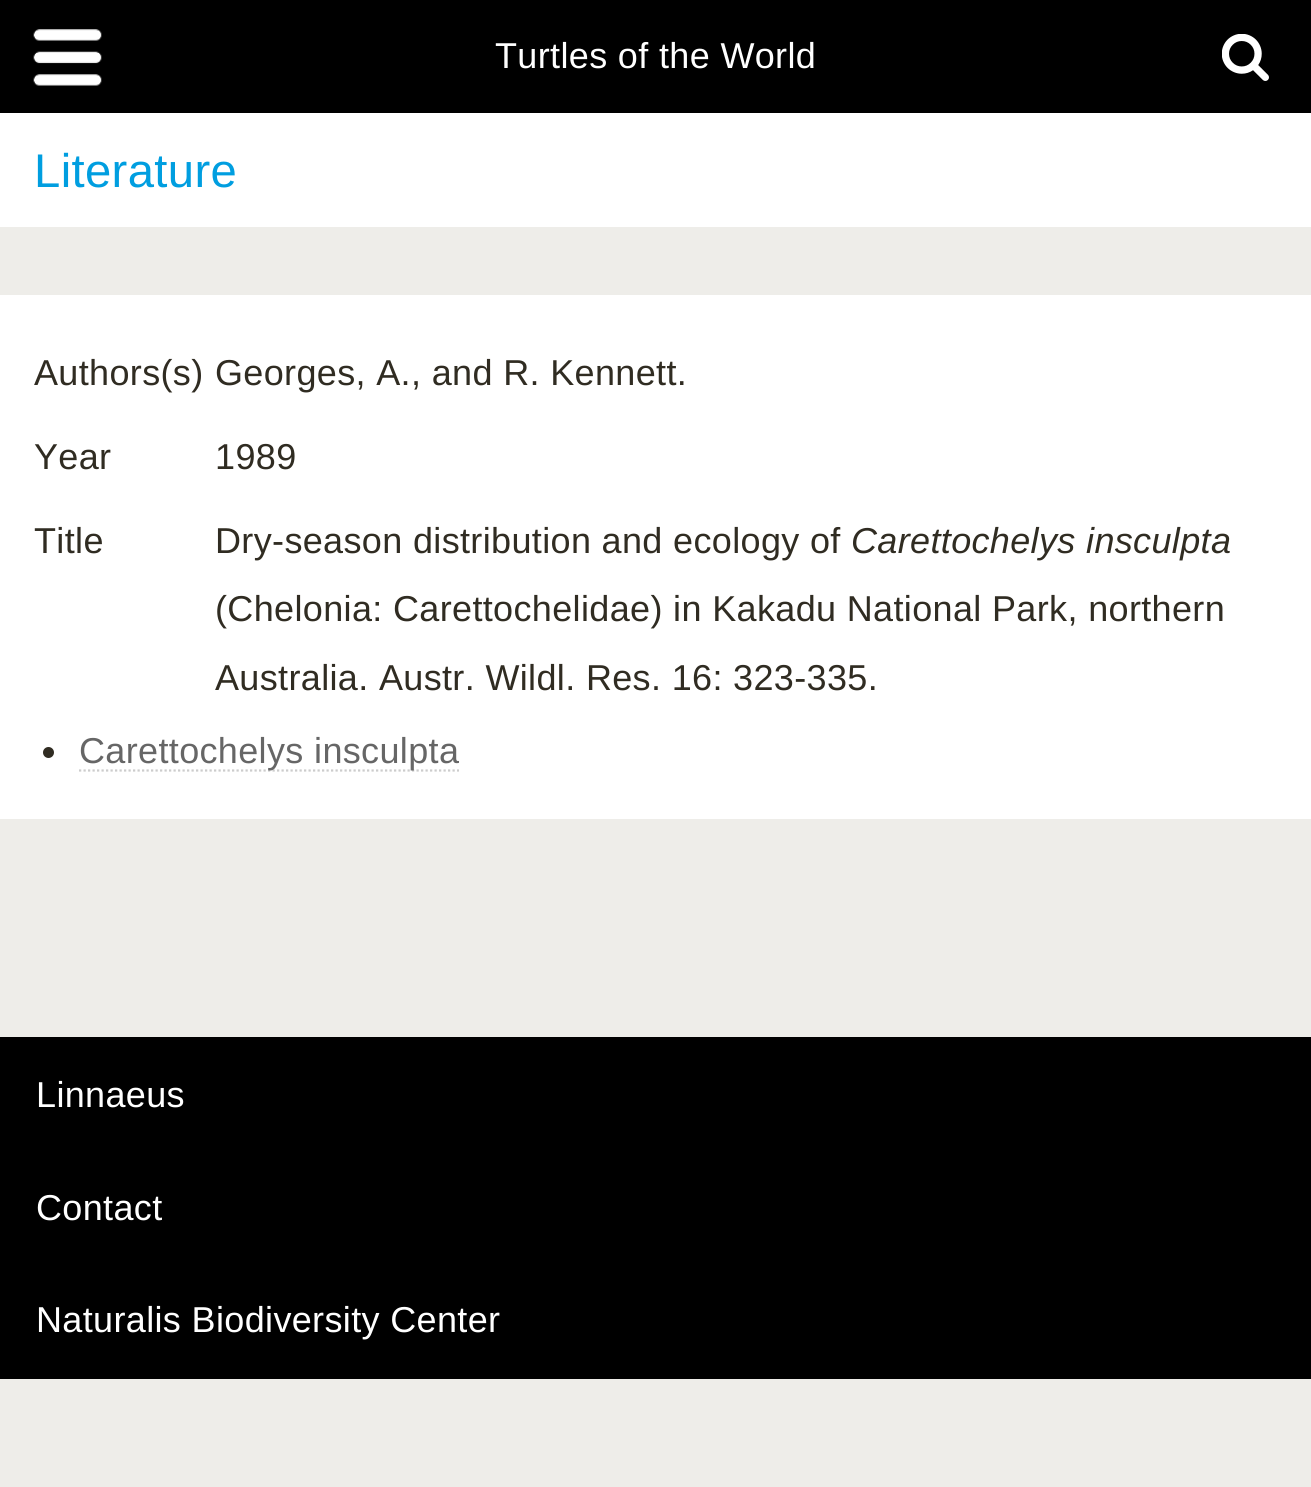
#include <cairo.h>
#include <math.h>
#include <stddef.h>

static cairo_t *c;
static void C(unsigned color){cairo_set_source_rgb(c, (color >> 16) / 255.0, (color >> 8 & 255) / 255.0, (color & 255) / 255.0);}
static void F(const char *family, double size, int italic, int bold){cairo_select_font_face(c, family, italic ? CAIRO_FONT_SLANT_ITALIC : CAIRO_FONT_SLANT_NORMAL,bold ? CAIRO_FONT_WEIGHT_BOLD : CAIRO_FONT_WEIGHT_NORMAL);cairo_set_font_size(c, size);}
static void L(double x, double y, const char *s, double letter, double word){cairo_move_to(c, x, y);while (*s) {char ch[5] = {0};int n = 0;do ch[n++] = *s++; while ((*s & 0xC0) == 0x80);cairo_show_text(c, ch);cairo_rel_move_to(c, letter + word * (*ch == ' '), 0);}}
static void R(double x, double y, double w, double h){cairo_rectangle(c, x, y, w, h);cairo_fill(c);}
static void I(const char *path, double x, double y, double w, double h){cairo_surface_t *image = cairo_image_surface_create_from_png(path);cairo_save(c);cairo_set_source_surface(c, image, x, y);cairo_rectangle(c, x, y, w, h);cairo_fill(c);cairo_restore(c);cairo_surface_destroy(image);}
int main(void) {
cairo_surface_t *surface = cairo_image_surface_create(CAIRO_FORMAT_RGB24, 1311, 1487);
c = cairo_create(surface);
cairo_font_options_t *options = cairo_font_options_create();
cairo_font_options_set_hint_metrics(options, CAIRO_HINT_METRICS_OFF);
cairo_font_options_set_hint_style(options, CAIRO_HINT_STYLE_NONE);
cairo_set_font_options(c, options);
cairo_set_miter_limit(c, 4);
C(0xeeede9);
cairo_paint(c);
C(0x000000);
R(0,0,1311,113);
I("1.png",33,29,69,57);
F("Liberation Sans",36,0,0);
C(0xffffff);
L(495,68,"Turtles of the World",.35,0);
I("2.png",1222,34,47,47);
R(0,113,1311,114);
F("Liberation Sans",47.25,0,0);
C(0x009ee0);
L(34,187,"Literature",.35,0);
C(0xffffff);
R(0,295,1311,524);
F("Liberation Sans",36,0,0);
C(0x302c22);
L(34,385,"Authors(s)",.35,0);
L(215,385,"Georges, A., and R. Kennett.",.35,0);
L(34,469,"Year",.35,0);
L(215,469,"1989",.35,0);
L(34,553,"Title",.35,0);
L(215,553,"Dry-season distribution and ecology of",.35,0);
F("Liberation Sans",36,1,0);
L(851,553,"Carettochelys insculpta",.35,0);
F("Liberation Sans",36,0,0);
L(215,621,"(Chelonia: Carettochelidae) in Kakadu National Park, northern",.35,0);
L(215,690,"Australia. Austr. Wildl. Res. 16: 323-335.",.35,0);
cairo_new_path(c);
cairo_arc(c,48.5,752.5,5.5,0,2 * M_PI);
cairo_fill(c);
cairo_new_path(c);
cairo_move_to(c,79,770.5);
cairo_line_to(c,459,770.5);
C(0xcccccc);
cairo_set_line_width(c,2.2);
cairo_set_dash(c,(double[]){2.25,2.25},2,0);
cairo_stroke(c);
C(0x666666);
L(79,763,"Carettochelys insculpta",.35,0);
C(0x000000);
R(0,1037,1311,342);
C(0xffffff);
L(36,1107,"Linnaeus",.35,0);
L(36,1220,"Contact",.35,0);
L(36,1332,"Naturalis Biodiversity Center",.35,0);
cairo_surface_write_to_png(surface, "o.png");
cairo_font_options_destroy(options);
cairo_destroy(c);
cairo_surface_destroy(surface);
return 0;
}
